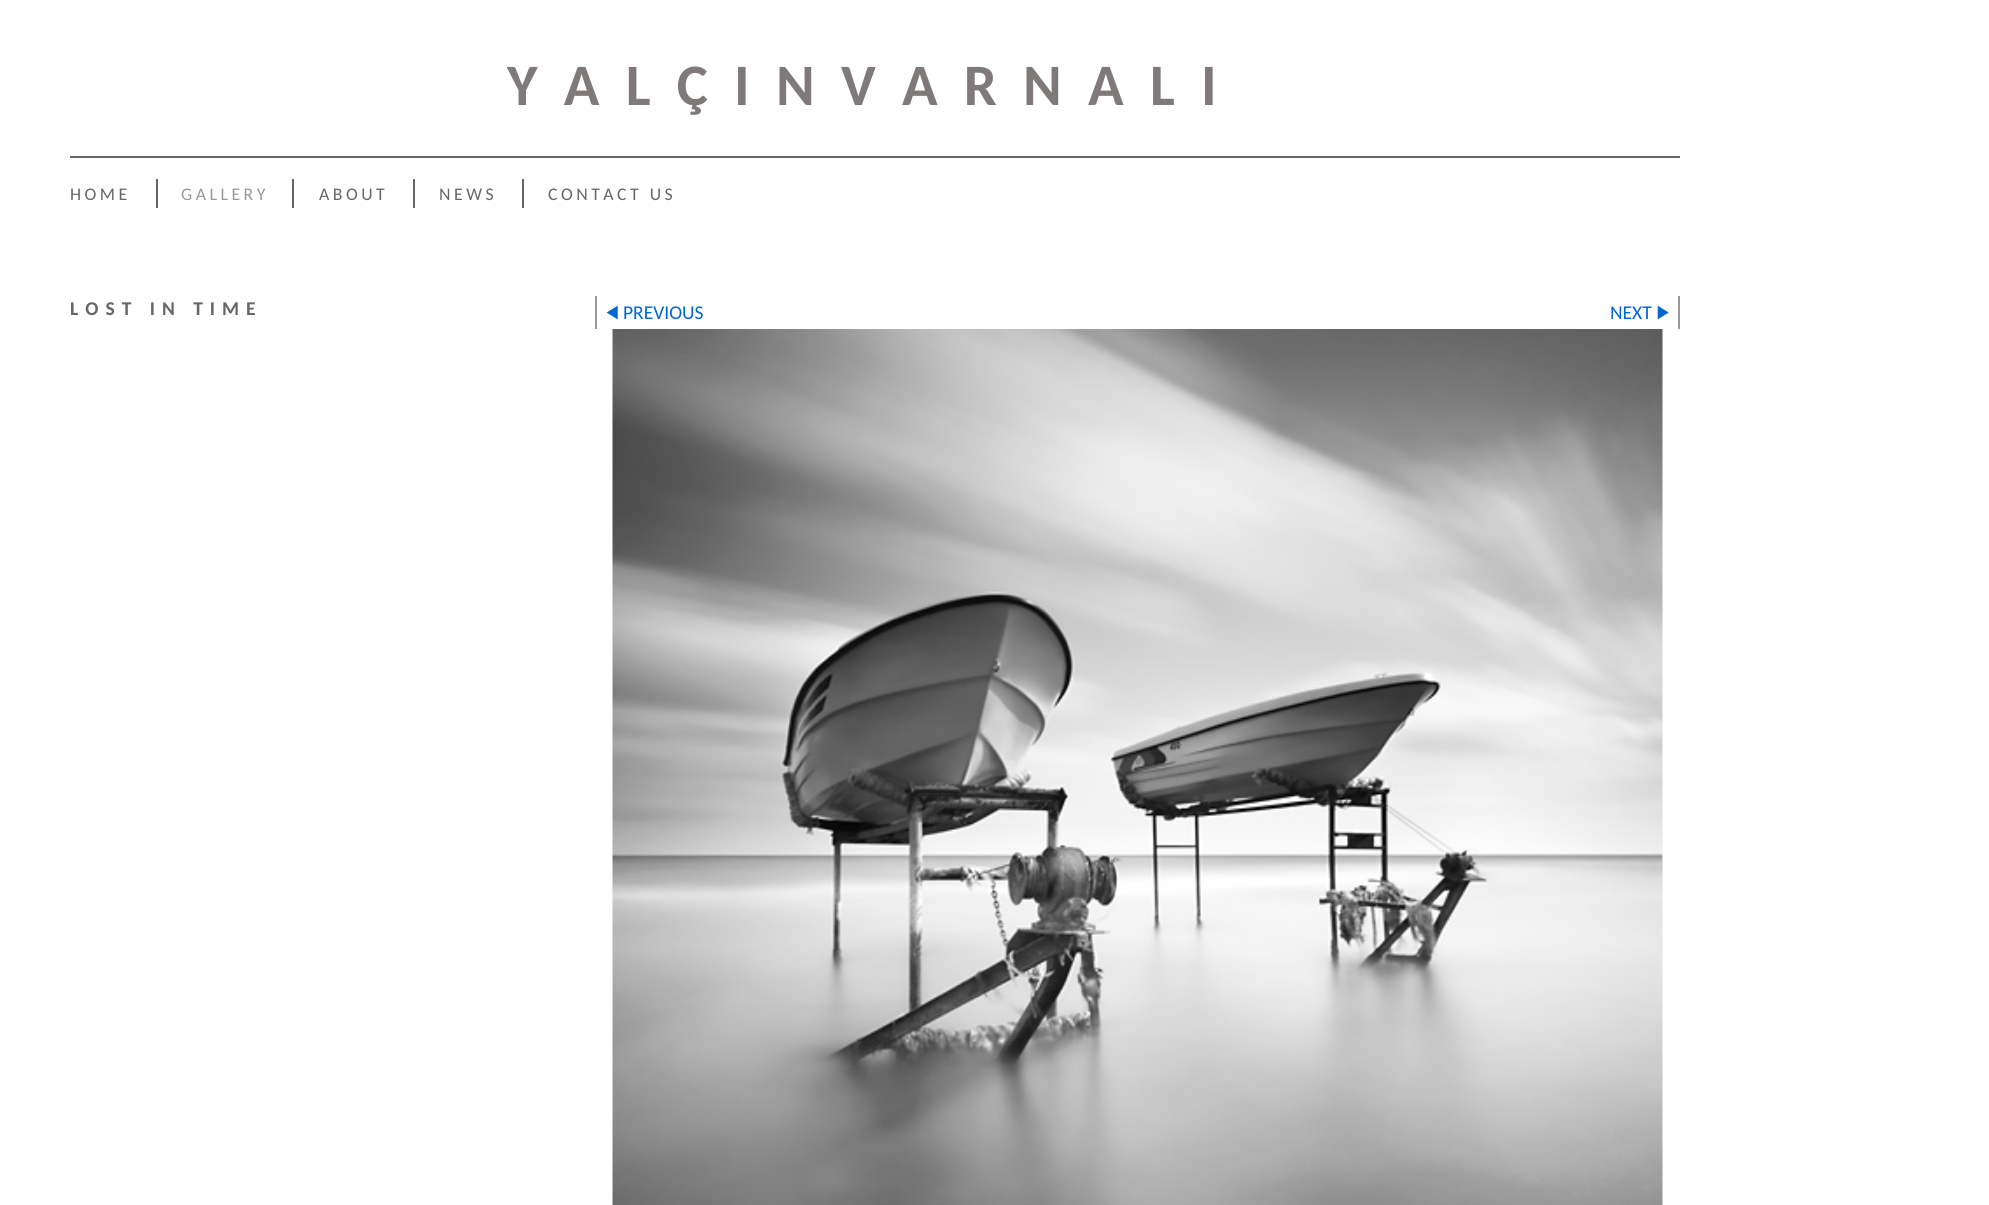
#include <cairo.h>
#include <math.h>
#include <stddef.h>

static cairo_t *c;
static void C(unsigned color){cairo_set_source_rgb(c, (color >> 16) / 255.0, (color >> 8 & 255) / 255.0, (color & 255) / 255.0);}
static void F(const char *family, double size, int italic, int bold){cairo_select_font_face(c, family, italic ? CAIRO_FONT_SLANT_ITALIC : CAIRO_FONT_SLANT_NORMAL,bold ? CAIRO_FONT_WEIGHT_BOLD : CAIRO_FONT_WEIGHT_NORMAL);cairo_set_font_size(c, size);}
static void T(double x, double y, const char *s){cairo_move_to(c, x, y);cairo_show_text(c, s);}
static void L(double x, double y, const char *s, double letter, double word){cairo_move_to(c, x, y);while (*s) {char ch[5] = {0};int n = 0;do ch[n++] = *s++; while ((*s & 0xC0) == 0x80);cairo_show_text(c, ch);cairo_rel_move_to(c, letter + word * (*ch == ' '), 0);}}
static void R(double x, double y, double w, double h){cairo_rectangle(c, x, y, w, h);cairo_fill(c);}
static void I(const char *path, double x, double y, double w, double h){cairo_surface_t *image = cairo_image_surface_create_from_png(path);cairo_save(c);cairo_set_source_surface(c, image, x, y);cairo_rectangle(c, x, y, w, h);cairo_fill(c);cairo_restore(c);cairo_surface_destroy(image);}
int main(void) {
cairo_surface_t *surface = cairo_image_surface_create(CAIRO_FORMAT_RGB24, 1989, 1205);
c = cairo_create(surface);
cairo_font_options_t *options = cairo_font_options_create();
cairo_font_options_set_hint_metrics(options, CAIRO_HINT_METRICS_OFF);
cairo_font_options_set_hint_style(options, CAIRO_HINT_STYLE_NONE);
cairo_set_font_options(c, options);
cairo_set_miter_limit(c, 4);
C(0xffffff);
cairo_paint(c);
C(0x666666);
R(70,156,1610,2);
F("Carlito",58.75,0,1);
C(0x807979);
L(507,105,"YALÇINVARNALI",26.25,0);
F("Carlito",17.75,0,0);
C(0x666666);
L(70,200,"HOME",3.5,0);
R(156,179,2,29);
C(0x999999);
L(181,200,"GALLERY",3.5,0);
C(0x666666);
R(292,179,2,29);
L(319,200,"ABOUT",3.5,0);
R(413,179,2,29);
L(439,200,"NEWS",3.5,0);
R(522,179,2,29);
L(548,200,"CONTACT US",3.5,0);
F("Carlito",19.5,0,1);
L(70,315,"LOST IN TIME",7,0);
C(0x999999);
R(595,296,2,33);
I("1.png",606,305,12,15);
F("Carlito",19.5,0,0);
C(0x0065cf);
T(623,319,"PREVIOUS");
C(0x999999);
R(1678,296,2,33);
C(0x0065cf);
T(1610,319,"NEXT");
I("2.png",1657,305,12,15);
I("3.png",612,329,1051,876);
cairo_surface_write_to_png(surface, "o.png");
cairo_font_options_destroy(options);
cairo_destroy(c);
cairo_surface_destroy(surface);
return 0;
}
